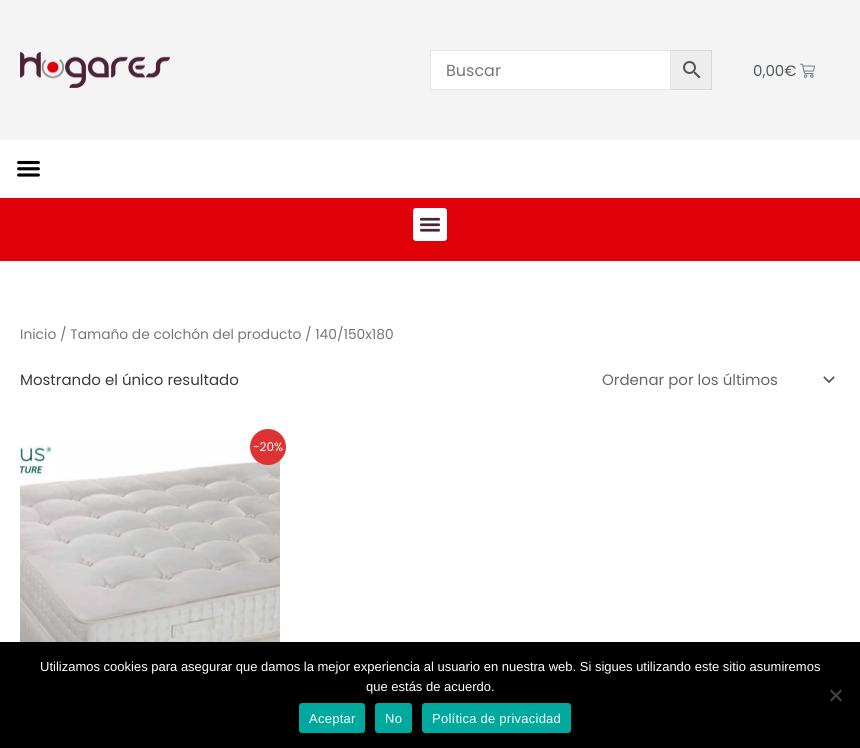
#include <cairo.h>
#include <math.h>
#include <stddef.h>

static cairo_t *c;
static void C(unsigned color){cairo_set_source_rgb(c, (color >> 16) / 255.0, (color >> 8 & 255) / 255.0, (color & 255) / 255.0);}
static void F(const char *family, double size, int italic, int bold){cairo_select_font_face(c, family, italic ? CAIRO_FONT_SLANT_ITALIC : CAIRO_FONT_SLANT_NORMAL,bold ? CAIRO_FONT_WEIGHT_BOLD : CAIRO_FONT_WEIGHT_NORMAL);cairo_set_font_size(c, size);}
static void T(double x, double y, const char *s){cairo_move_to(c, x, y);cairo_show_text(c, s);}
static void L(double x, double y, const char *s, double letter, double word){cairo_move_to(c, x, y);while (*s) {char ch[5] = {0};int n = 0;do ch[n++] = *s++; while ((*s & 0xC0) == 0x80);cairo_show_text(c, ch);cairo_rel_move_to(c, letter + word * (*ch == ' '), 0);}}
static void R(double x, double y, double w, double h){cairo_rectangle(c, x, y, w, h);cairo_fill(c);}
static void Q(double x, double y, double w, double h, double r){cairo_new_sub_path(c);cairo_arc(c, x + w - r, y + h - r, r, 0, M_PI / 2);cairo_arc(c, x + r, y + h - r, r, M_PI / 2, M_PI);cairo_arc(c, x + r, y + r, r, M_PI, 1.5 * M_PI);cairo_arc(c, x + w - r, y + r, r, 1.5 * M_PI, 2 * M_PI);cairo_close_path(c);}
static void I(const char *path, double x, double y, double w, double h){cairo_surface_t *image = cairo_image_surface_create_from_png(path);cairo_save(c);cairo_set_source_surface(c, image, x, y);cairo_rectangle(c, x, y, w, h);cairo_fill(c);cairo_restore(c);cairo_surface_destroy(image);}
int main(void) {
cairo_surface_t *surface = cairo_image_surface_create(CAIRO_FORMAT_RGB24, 860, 748);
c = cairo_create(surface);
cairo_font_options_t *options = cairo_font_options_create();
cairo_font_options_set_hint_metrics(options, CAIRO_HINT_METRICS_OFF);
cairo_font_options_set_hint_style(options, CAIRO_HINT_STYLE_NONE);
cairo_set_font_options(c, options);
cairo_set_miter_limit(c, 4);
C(0xffffff);
cairo_paint(c);
C(0xf4f4f4);
R(0,0,860,140);
I("1.png",20,52,150,36);
C(0xededed);
cairo_rectangle(c,670.5,50.5,41,39);
cairo_fill_preserve(c);
C(0xd8d8d8);
cairo_set_line_width(c,1);
cairo_stroke(c);
C(0xffffff);
cairo_rectangle(c,430.5,50.5,240,39);
cairo_fill_preserve(c);
C(0xe5e5e5);
cairo_stroke(c);
F("Poppins",16,0,0);
C(0x777777);
T(446,76,"Buscar");
I("2.png",683,61,18,18);
F("Poppins",15,0,0);
C(0x54595f);
T(753,76,"0,00€");
I("3.png",800,63,15,15);
I("4.png",17,160,23,17);
C(0xdf0009);
R(0,198,860,63);
C(0xffffff);
Q(413,208,34,33,3);
cairo_fill(c);
I("5.png",419,217,22,15);
F("Poppins",13.8,0,0);
C(0x777777);
T(20,339,"Inicio / Tamaño de colchón del producto / 140/150x180");
F("Poppins",15,0,0);
C(0x3a3a3a);
T(20,385,"Mostrando el único resultado");
I("6.png",823,376,12,7);
C(0x666666);
T(602,385,"Ordenar por los últimos");
I("7.png",20,445,260,197);
C(0xdd3333);
cairo_arc(c,268,447,18,0,2 * M_PI);
cairo_fill(c);
F("Poppins",12,0,0);
C(0xffffff);
T(253,451,"-20%");
C(0x000000);
R(0,642,860,106);
F("Liberation Sans",13,0,0);
C(0xffffff);
T(40,671,"Utilizamos cookies para asegurar que damos la mejor experiencia al usuario en nuestra web. Si sigues utilizando este sitio asumiremos");
T(366,691,"que estás de acuerdo.");
C(0x404040);
cairo_new_path(c);
cairo_move_to(c,840.5,689.5);
cairo_line_to(c,842,691);
cairo_line_to(c,831.5,701.5);
cairo_line_to(c,830,700);
cairo_close_path(c);
cairo_fill(c);
cairo_new_path(c);
cairo_move_to(c,830,691);
cairo_line_to(c,831.5,689.5);
cairo_line_to(c,842,700);
cairo_line_to(c,840.5,701.5);
cairo_close_path(c);
cairo_fill(c);
C(0x00a99d);
Q(299,703,66,30,3);
cairo_fill(c);
C(0xffffff);
L(309,723,"Aceptar",.25,0);
C(0x00a99d);
Q(375,703,37,30,3);
cairo_fill(c);
C(0xffffff);
L(385,723,"No",.25,0);
C(0x00a99d);
Q(422,703,149,30,3);
cairo_fill(c);
C(0xffffff);
L(432,723,"Política de privacidad",.25,0);
cairo_surface_write_to_png(surface, "o.png");
cairo_font_options_destroy(options);
cairo_destroy(c);
cairo_surface_destroy(surface);
return 0;
}
